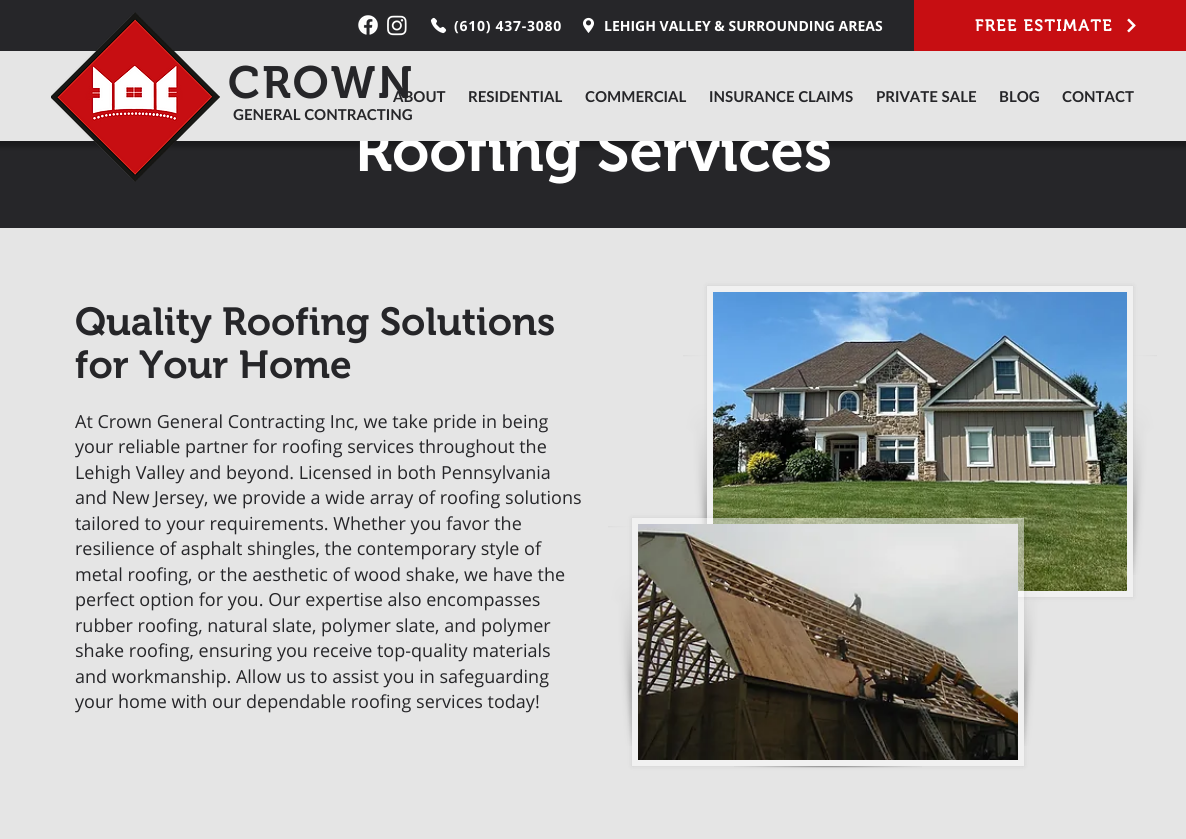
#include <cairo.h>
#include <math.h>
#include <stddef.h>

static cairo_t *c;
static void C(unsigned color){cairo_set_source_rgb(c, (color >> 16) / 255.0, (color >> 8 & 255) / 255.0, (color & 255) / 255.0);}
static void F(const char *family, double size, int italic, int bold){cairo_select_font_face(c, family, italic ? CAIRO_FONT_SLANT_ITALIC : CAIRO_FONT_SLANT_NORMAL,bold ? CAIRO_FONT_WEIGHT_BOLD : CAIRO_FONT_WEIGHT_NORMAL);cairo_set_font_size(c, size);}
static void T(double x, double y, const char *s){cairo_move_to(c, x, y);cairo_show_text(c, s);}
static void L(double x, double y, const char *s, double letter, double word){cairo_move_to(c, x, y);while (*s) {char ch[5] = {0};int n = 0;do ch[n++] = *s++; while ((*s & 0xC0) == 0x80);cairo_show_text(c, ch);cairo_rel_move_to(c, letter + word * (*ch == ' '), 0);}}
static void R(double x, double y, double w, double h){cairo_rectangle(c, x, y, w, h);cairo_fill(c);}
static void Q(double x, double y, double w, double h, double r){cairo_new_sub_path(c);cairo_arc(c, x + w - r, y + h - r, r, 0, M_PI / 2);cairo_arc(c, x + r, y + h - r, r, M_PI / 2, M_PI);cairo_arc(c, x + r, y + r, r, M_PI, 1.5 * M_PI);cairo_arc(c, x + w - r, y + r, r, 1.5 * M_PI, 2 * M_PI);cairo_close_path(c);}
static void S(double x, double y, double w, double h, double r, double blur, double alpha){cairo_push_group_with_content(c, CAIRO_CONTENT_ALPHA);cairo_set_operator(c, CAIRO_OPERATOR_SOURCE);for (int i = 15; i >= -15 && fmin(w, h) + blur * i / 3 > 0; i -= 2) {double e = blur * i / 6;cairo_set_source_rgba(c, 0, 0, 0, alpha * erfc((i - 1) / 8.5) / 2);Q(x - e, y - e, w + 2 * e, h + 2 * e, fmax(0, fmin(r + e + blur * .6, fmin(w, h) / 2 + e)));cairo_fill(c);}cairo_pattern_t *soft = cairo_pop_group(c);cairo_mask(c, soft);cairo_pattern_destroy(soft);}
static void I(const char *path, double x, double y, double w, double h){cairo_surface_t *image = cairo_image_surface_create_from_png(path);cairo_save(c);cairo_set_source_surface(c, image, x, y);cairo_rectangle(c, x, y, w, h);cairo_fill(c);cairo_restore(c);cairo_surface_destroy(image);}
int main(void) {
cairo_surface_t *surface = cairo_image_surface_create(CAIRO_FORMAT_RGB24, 1186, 839);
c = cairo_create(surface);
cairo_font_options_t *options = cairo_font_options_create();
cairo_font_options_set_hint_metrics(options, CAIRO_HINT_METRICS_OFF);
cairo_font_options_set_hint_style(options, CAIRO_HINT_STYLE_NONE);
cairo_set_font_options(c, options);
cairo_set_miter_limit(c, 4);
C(0x262629);
cairo_paint(c);
C(0x000000);
S(-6,-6,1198,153,0,2.5,.33);
F("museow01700 SemiBold",60,0,0);
C(0xffffff);
T(354,171,"Roofing Services");
C(0xe5e5e5);
R(0,51,1186,90);
C(0x262629);
R(0,0,914,51);
I("1.png",358,15,20,20);
I("2.png",387,15,20,21);
I("3.png",430,17,17,17);
F("Open Sans",14,0,1);
C(0xffffff);
L(454,31,"(610) 437-3080",.75,0);
I("4.png",583,17,11,16);
T(604,31,"LEHIGH VALLEY & SURROUNDING AREAS");
C(0xc70e12);
R(914,0,272,51);
F("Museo",16,0,1);
C(0xffffff);
L(975,31,"FREE ESTIMATE",1.6,0);
I("5.png",1127,18,9,15);
I("6.png",51,12,169,170);
F("museow01700 SemiBold",45,0,0);
C(0x262629);
L(228,98,"CROWN",2.25,0);
F("Lato",15,0,1);
T(233,120,"GENERAL CONTRACTING");
T(393,102,"ABOUT");
T(468,102,"RESIDENTIAL");
T(585,102,"COMMERCIAL");
T(709,102,"INSURANCE CLAIMS");
T(876,102,"PRIVATE SALE");
T(999,102,"BLOG");
T(1062,102,"CONTACT");
C(0xe5e5e5);
R(0,228,1186,611);
F("museow01700 SemiBold",39,0,0);
C(0x262629);
T(75,335,"Quality Roofing Solutions");
T(75,378,"for Your Home");
C(0x000000);
S(707,286,426,311,0,2.5,.1);
I("7.png",683,355,24,169);
cairo_rectangle(c,710,289,420,305);
C(0xf1f1f1);
cairo_set_line_width(c,6);
cairo_stroke(c);
I("8.png",713,292,414,299);
I("9.png",1133,355,24,220);
F("Open Sans",18,0,0);
C(0x262629);
T(75,428,"At Crown General Contracting Inc, we take pride in being");
T(75,453,"your reliable partner for roofing services throughout the");
T(75,479,"Lehigh Valley and beyond. Licensed in both Pennsylvania");
T(75,504,"and New Jersey, we provide a wide array of roofing solutions");
T(75,530,"tailored to your requirements. Whether you favor the");
T(75,555,"resilience of asphalt shingles, the contemporary style of");
T(75,581,"metal roofing, or the aesthetic of wood shake, we have the");
T(75,606,"perfect option for you. Our expertise also encompasses");
T(75,632,"rubber roofing, natural slate, polymer slate, and polymer");
T(75,657,"shake roofing, ensuring you receive top-quality materials");
T(75,683,"and workmanship. Allow us to assist you in safeguarding");
T(75,708,"your home with our dependable roofing services today!");
cairo_save(c);
cairo_set_fill_rule(c,CAIRO_FILL_RULE_EVEN_ODD);
cairo_new_path(c);
cairo_move_to(c,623,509);
cairo_line_to(c,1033,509);
cairo_line_to(c,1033,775);
cairo_line_to(c,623,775);
cairo_close_path(c);
cairo_move_to(c,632,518);
cairo_line_to(c,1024,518);
cairo_line_to(c,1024,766);
cairo_line_to(c,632,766);
cairo_close_path(c);
cairo_clip(c);
C(0x000000);
S(632,518,392,248,0,2.5,.1);
cairo_restore(c);
I("10.png",608,526,24,220);
cairo_set_source_rgba(c,1,1,1,0.27);
R(632,518,392,248);
cairo_rectangle(c,635,521,386,242);
cairo_stroke(c);
I("11.png",638,524,380,236);
I("12.png",734,766,188,2);
I("13.png",1024,526,24,220);
cairo_surface_write_to_png(surface, "o.png");
cairo_font_options_destroy(options);
cairo_destroy(c);
cairo_surface_destroy(surface);
return 0;
}
